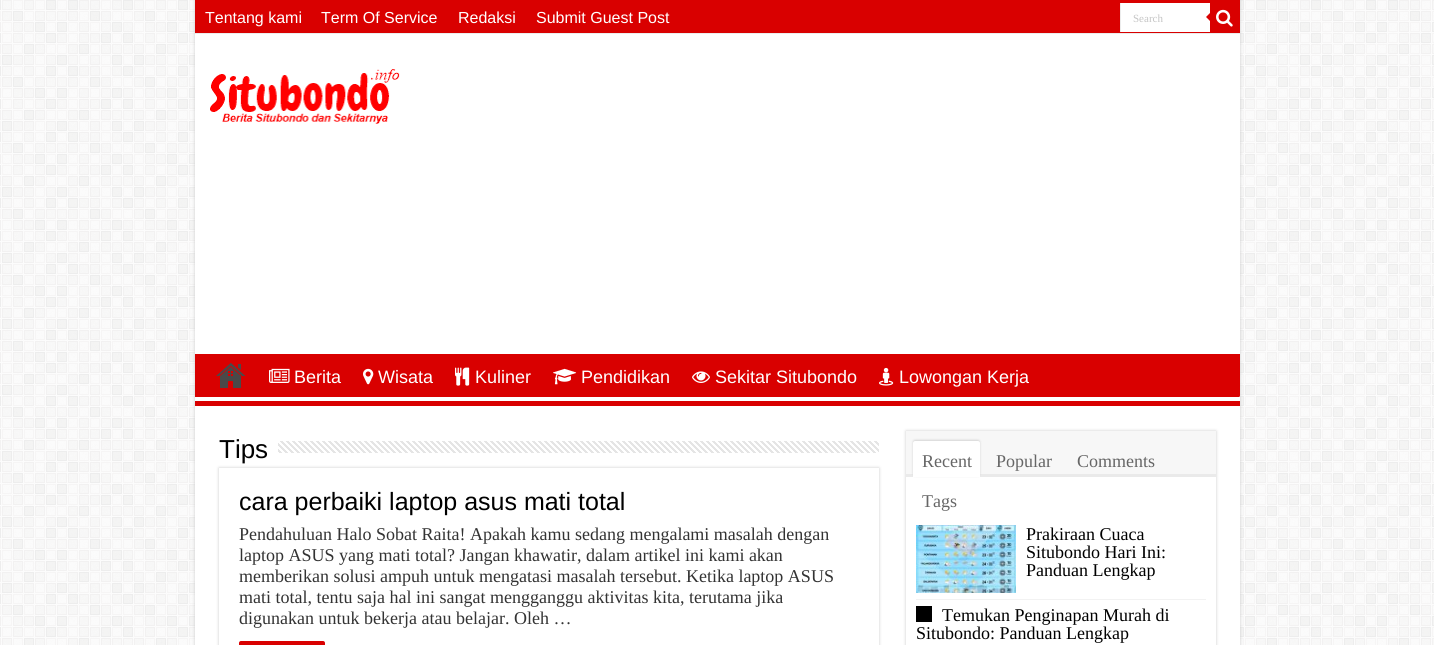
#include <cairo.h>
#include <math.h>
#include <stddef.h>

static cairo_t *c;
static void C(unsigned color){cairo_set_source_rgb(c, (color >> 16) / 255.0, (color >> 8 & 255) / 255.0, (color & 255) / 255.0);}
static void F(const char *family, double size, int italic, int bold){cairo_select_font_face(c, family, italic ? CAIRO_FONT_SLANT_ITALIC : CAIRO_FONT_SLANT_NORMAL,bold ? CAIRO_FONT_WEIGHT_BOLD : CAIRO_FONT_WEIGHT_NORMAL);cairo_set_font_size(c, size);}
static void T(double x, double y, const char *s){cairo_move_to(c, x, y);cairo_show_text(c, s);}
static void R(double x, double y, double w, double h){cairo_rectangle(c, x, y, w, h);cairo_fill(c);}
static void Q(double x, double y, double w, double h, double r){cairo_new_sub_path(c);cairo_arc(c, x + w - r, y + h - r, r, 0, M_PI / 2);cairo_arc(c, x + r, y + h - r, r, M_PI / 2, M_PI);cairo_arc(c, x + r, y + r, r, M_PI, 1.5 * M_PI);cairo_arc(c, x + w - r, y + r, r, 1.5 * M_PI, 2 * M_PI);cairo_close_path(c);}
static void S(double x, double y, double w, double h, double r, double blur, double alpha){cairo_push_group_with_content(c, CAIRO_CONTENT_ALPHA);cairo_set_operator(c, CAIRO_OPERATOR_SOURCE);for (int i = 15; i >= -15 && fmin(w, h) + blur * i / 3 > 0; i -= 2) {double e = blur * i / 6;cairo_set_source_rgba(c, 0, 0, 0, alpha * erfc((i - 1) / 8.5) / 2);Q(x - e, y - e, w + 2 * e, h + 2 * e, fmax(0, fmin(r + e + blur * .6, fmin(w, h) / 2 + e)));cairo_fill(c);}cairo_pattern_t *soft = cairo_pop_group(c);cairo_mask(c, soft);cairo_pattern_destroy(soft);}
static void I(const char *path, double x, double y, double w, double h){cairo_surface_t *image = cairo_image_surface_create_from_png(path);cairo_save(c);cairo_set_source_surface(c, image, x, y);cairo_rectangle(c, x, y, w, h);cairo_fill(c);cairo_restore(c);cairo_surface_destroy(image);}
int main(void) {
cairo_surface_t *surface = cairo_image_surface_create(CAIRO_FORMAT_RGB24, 1434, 645);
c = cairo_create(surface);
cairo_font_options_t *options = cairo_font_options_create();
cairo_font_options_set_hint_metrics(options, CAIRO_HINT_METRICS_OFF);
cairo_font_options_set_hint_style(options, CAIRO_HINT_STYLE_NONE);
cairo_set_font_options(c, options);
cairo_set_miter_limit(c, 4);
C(0xffffff);
cairo_paint(c);
I("1.png",0,0,1434,645);
C(0xcacaca);
S(195,0,1045,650,0,1.5,1);
C(0xffffff);
R(195,34,1045,611);
C(0xd90000);
R(195,0,1045,33);
C(0xececec);
R(195,33,1045,1);
F("Liberation Sans",16,0,0);
C(0xffffff);
T(205,23,"Tentang kami");
T(321,23,"Term Of Service");
T(458,23,"Redaksi");
T(536,23,"Submit Guest Post");
R(1121,3,89,29);
C(0xececec);
R(1120,3,1,29);
F("Liberation Serif",11,0,0);
C(0xc5c5c5);
T(1133,22,"Search");
I("2.png",1216,9,17,18);
C(0xd90000);
cairo_new_path(c);
cairo_move_to(c,1210,13);
cairo_line_to(c,1210,21);
cairo_line_to(c,1206,17);
cairo_close_path(c);
cairo_fill(c);
I("3.png",210,69,190,55);
R(195,354,1045,52);
cairo_save(c);
cairo_rectangle(c,195,354,1045,47);
cairo_clip(c);
C(0xffffff);
cairo_set_fill_rule(c,CAIRO_FILL_RULE_EVEN_ODD);
cairo_new_path(c);
cairo_move_to(c,96,255);
cairo_line_to(c,1339,255);
cairo_line_to(c,1339,500);
cairo_line_to(c,96,500);
cairo_close_path(c);
cairo_move_to(c,194,348);
cairo_line_to(c,1240,348);
cairo_line_to(c,1240,388);
cairo_curve_to(c,1240,389,1241,397,1239,397);
cairo_line_to(c,194,397);
cairo_line_to(c,193,396);
cairo_line_to(c,193,348);
cairo_close_path(c);
cairo_fill(c);
cairo_restore(c);
I("4.png",216,363,30,25);
I("5.png",269,368,21,15);
F("Liberation Sans",18,0,0);
C(0xffffff);
T(294,383,"Berita");
I("6.png",363,368,11,17);
T(378,383,"Wisata");
I("7.png",455,367,15,19);
T(475,383,"Kuliner");
I("8.png",553,368,24,17);
T(581,383,"Pendidikan");
I("9.png",692,371,18,12);
T(715,383,"Sekitar Situbondo");
I("10.png",879,367,15,19);
T(899,383,"Lowongan Kerja");
cairo_save(c);
cairo_set_fill_rule(c,CAIRO_FILL_RULE_EVEN_ODD);
cairo_new_path(c);
cairo_move_to(c,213,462);
cairo_line_to(c,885,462);
cairo_line_to(c,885,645);
cairo_line_to(c,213,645);
cairo_close_path(c);
cairo_move_to(c,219,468);
cairo_line_to(c,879,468);
cairo_line_to(c,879,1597);
cairo_line_to(c,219,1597);
cairo_close_path(c);
cairo_clip(c);
C(0xcacaca);
S(219,468,660,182,0,1.5,1);
cairo_restore(c);
F("Liberation Sans",26,0,0);
C(0x000000);
T(219,458,"Tips");
I("11.png",278,441,601,12);
F("Liberation Sans",25,0,0);
T(239,510,"cara perbaiki laptop asus mati total");
F("Liberation Serif",18,0,0);
C(0x333333);
T(239,540,"Pendahuluan Halo Sobat Raita! Apakah kamu sedang mengalami masalah dengan");
T(239,561,"laptop ASUS yang mati total? Jangan khawatir, dalam artikel ini kami akan");
T(239,582,"memberikan solusi ampuh untuk mengatasi masalah tersebut. Ketika laptop ASUS");
T(239,603,"mati total, tentu saja hal ini sangat mengganggu aktivitas kita, terutama jika");
T(239,624,"digunakan untuk bekerja atau belajar. Oleh …");
C(0xd90000);
Q(239,641,86,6,2);
cairo_fill(c);
cairo_save(c);
cairo_set_fill_rule(c,CAIRO_FILL_RULE_EVEN_ODD);
cairo_new_path(c);
cairo_move_to(c,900,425);
cairo_line_to(c,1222,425);
cairo_line_to(c,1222,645);
cairo_line_to(c,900,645);
cairo_close_path(c);
cairo_move_to(c,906,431);
cairo_line_to(c,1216,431);
cairo_line_to(c,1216,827);
cairo_line_to(c,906,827);
cairo_close_path(c);
cairo_clip(c);
C(0xcacaca);
S(906,431,310,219,0,1.5,1);
cairo_restore(c);
C(0xf7f7f7);
R(906,431,310,43);
C(0xeaeaea);
R(906,474,310,3);
C(0xd4d4d4);
S(913,440,67,36,2,1,1);
C(0xffffff);
cairo_new_path(c);
cairo_move_to(c,915,441);
cairo_line_to(c,978,441);
cairo_curve_to(c,979,441,980,442,980,443);
cairo_line_to(c,980,477);
cairo_line_to(c,913,477);
cairo_line_to(c,913,443);
cairo_curve_to(c,913,442,914,441,915,441);
cairo_close_path(c);
cairo_fill(c);
C(0x666666);
T(922,467,"Recent");
T(996,467,"Popular");
T(1077,467,"Comments");
T(922,507,"Tags");
C(0xf2f2f2);
R(916,599,290,1);
I("12.png",916,525,100,68);
C(0x000000);
T(1026,540,"Prakiraan Cuaca");
T(1026,558,"Situbondo Hari Ini:");
T(1026,576,"Panduan Lengkap");
R(916,606,16,16);
T(942,621,"Temukan Penginapan Murah di");
T(916,639,"Situbondo: Panduan Lengkap");
cairo_surface_write_to_png(surface, "o.png");
cairo_font_options_destroy(options);
cairo_destroy(c);
cairo_surface_destroy(surface);
return 0;
}
